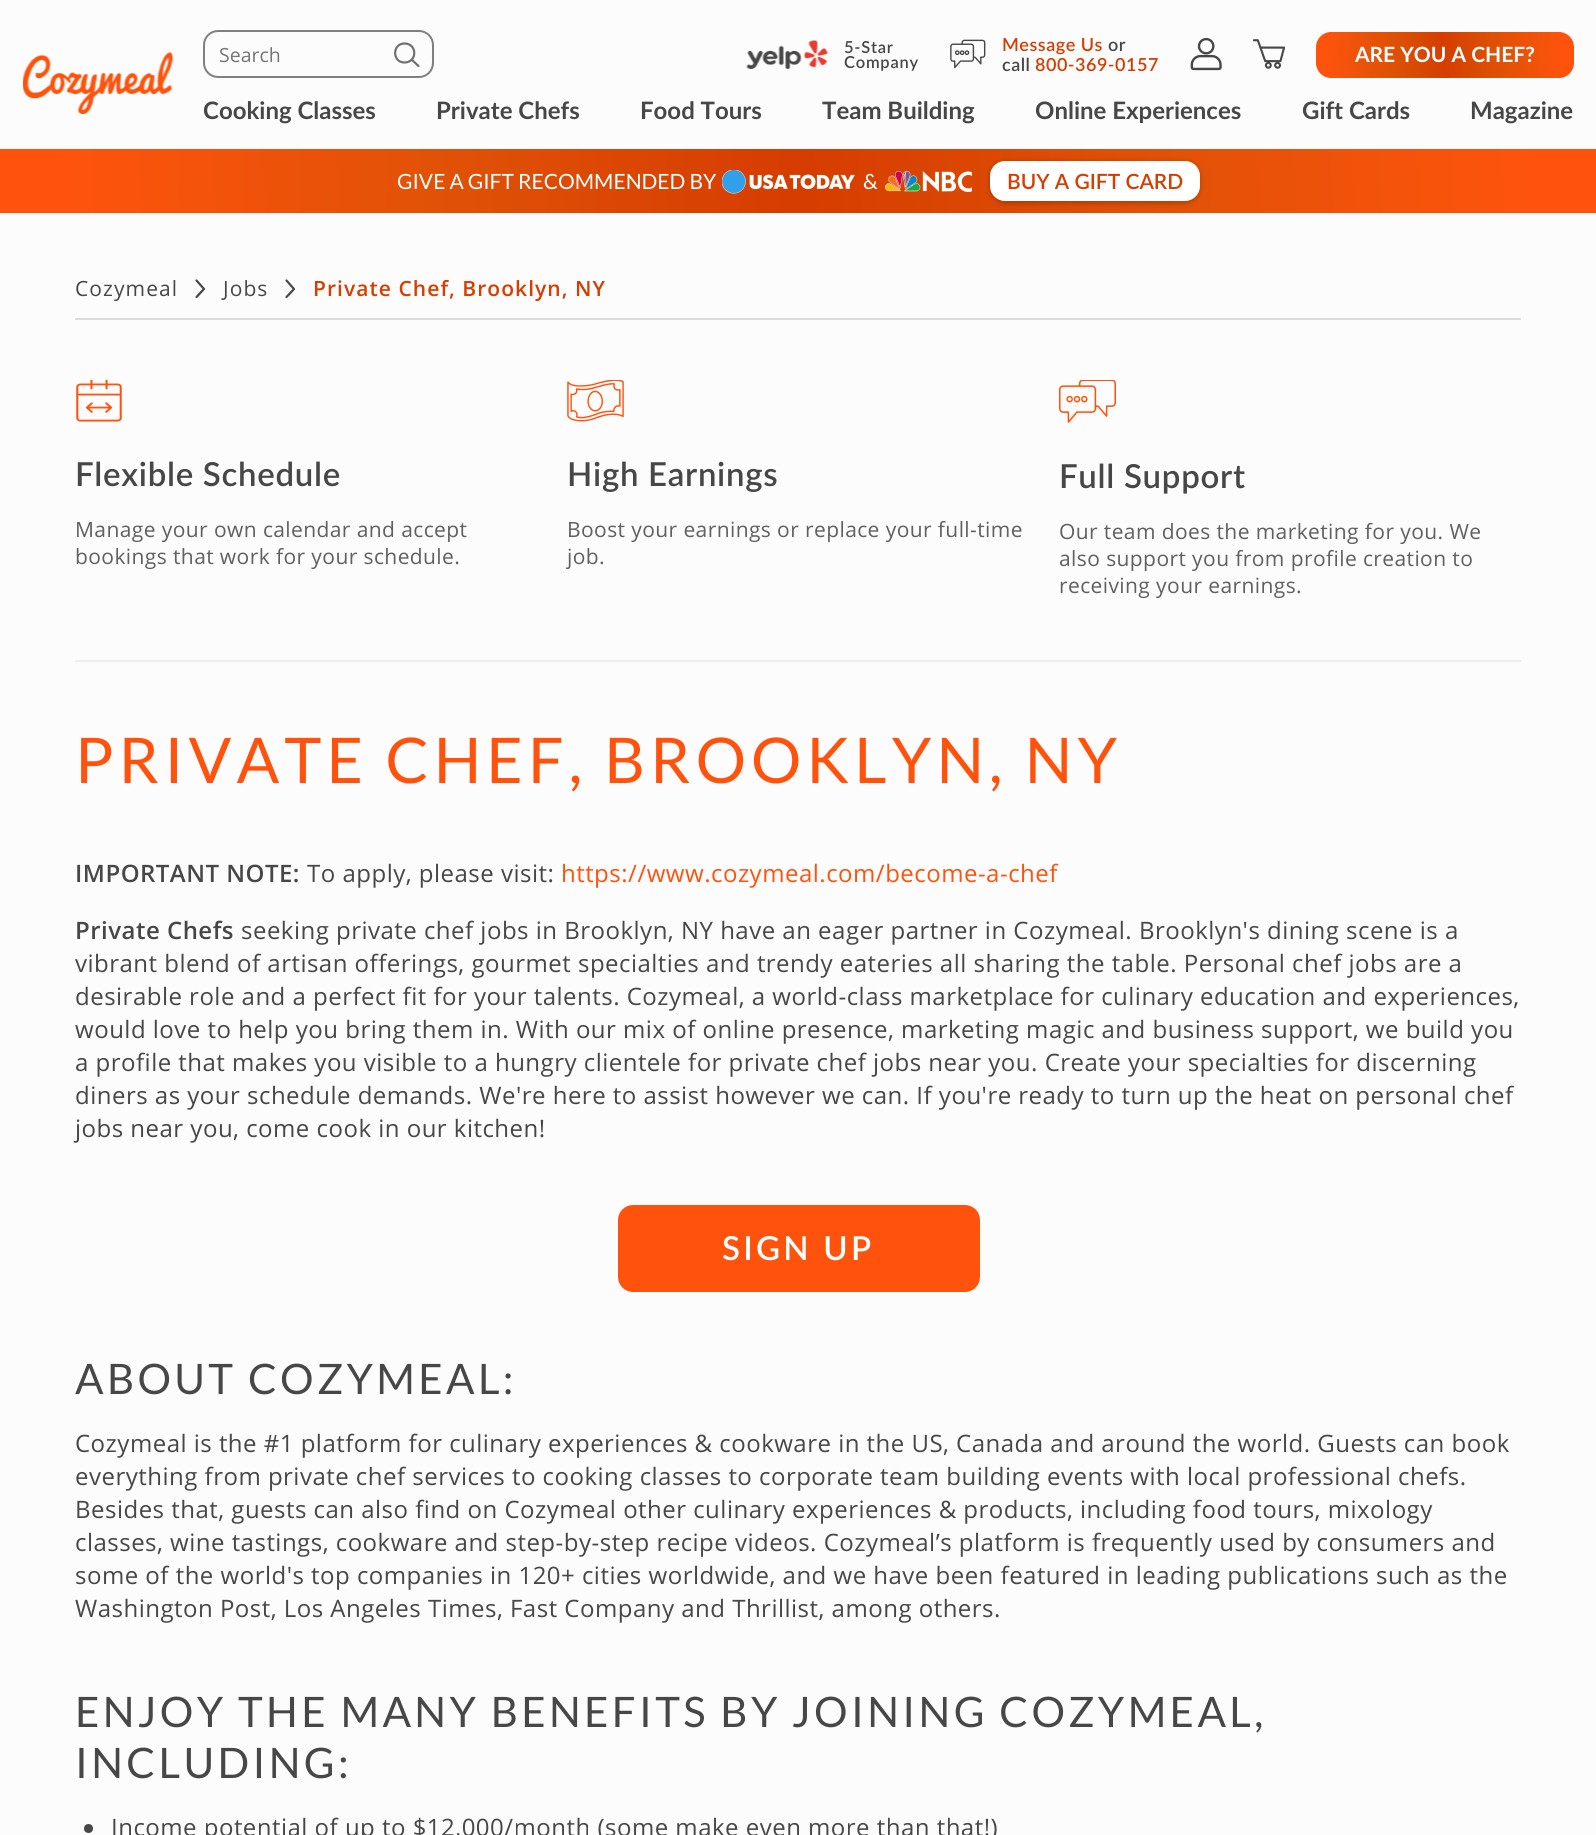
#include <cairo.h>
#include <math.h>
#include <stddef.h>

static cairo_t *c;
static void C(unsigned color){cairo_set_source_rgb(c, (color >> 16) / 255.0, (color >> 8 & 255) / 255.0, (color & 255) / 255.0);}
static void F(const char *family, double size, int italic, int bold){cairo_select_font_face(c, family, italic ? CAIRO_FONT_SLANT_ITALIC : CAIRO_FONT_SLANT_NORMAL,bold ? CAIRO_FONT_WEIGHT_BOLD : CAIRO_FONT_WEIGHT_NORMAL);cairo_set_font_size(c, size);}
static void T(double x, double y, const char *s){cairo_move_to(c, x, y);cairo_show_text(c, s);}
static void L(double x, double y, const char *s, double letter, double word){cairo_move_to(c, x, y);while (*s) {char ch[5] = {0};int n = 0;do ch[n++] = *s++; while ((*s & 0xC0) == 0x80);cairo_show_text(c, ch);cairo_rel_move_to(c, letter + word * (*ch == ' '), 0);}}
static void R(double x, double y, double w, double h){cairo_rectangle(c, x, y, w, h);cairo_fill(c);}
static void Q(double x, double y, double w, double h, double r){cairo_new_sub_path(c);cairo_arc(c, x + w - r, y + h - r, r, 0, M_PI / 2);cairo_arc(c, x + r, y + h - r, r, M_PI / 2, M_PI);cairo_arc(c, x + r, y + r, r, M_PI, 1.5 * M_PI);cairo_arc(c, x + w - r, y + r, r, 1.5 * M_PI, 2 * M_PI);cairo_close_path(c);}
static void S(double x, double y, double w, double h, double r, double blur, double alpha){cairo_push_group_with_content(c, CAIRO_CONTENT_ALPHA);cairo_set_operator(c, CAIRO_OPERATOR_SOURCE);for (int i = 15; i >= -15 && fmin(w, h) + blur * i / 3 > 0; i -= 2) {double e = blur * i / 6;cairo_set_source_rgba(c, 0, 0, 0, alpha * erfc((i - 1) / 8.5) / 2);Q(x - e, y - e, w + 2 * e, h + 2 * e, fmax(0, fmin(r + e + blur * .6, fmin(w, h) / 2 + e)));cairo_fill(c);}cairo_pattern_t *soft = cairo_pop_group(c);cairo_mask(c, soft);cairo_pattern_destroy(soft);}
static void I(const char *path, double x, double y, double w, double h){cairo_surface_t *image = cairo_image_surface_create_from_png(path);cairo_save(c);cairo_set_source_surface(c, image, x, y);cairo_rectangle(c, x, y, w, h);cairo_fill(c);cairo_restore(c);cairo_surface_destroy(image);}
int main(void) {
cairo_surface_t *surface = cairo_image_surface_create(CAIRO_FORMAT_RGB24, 1596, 1835);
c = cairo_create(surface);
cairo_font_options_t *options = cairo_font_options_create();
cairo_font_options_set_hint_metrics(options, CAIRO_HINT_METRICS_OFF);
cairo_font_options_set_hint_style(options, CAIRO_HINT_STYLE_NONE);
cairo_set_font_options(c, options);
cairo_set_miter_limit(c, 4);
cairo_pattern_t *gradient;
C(0xfcfcfc);
cairo_paint(c);
I("1.png",23,52,150,62);
Q(204,31,229,46,14);
C(0x808080);
cairo_stroke(c);
F("Open Sans",19.5,0,0);
C(0x757575);
T(219,62,"Search");
cairo_new_path(c);
cairo_move_to(c,404.5,62.5);
cairo_curve_to(c,417.5,62.5,417.5,43.5,404.5,43.5);
cairo_curve_to(c,392,43.5,392,62.5,404.5,62.5);
cairo_close_path(c);
cairo_move_to(c,411.5,59.5);
cairo_line_to(c,418.5,66);
C(0x707070);
cairo_set_line_width(c,2.2);
cairo_set_line_cap(c,CAIRO_LINE_CAP_ROUND);
cairo_set_line_join(c,CAIRO_LINE_JOIN_ROUND);
cairo_stroke(c);
I("2.png",746,40,82,29);
F("Lato SemiBold",16.5,0,0);
C(0x474747);
L(844,53,"5-Star",.75,0);
L(844,68,"Company",.75,0);
I("3.png",950,39,36,30);
F("Lato SemiBold",18,0,0);
C(0xd63d00);
L(1002,51,"Message Us",.5,0);
C(0x474747);
L(1108,51,"or",.5,0);
L(1002,71,"call",.5,0);
C(0xd63d00);
L(1035,71,"800-369-0157",.5,0);
I("4.png",1190,38,32,33);
I("5.png",1253,39,33,30);
C(0xff530d);
Q(1316,32,258,46,15);
cairo_fill(c);
gradient = cairo_pattern_create_linear(1315,62,1574,48);
cairo_pattern_add_color_stop_rgba(gradient,.04,0.761,0.318,0,0);
cairo_pattern_add_color_stop_rgba(gradient,.27,0.761,0.318,0,.5);
cairo_pattern_add_color_stop_rgba(gradient,.5,0.839,0.239,0,1);
cairo_pattern_add_color_stop_rgba(gradient,.73,0.761,0.318,0,.5);
cairo_pattern_add_color_stop_rgba(gradient,.96,0.761,0.318,0,0);
cairo_set_source(c,gradient);
cairo_pattern_destroy(gradient);
R(1326,32,237,46);
F("Lato",21,0,1);
C(0xffffff);
T(1355,62,"ARE YOU A CHEF?");
F("Lato",24,0,1);
C(0x474747);
T(203,119,"Cooking Classes");
T(436,119,"Private Chefs");
T(640,119,"Food Tours");
T(822,119,"Team Building");
T(1035,119,"Online Experiences");
T(1302,119,"Gift Cards");
T(1470,119,"Magazine");
gradient = cairo_pattern_create_linear(.5,223,1595,139);
cairo_pattern_add_color_stop_rgba(gradient,.04,1,0.325,0.051,1);
cairo_pattern_add_color_stop_rgba(gradient,.27,0.882,0.322,0.027,1);
cairo_pattern_add_color_stop_rgba(gradient,.5,0.839,0.239,0,1);
cairo_pattern_add_color_stop_rgba(gradient,.73,0.882,0.322,0.027,1);
cairo_pattern_add_color_stop_rgba(gradient,.96,1,0.325,0.051,1);
cairo_set_source(c,gradient);
cairo_pattern_destroy(gradient);
R(0,149,1596,64);
F("Lato",21,0,0);
C(0xffffff);
T(397,189,"GIVE A GIFT RECOMMENDED BY");
I("6.png",722,170,133,24);
T(863,189,"&");
I("7.png",885,171,87,21);
C(0x000000);
S(990,162,210,41,15,3,.25);
C(0xffffff);
Q(990,161,210,40,15);
cairo_fill(c);
F("Lato SemiBold",21,0,0);
C(0xd63d00);
T(1007,189,"BUY A GIFT CARD");
C(0xdddddd);
R(75,318,1446,2);
cairo_new_path(c);
cairo_move_to(c,196.5,280.5);
cairo_line_to(c,204,289);
cairo_line_to(c,196.5,297);
C(0x474747);
cairo_stroke(c);
F("Open Sans",21,0,0);
L(75,296,"Cozymeal",1.05,0);
cairo_new_path(c);
cairo_move_to(c,286.5,280.5);
cairo_line_to(c,294,289);
cairo_line_to(c,286.5,297);
cairo_stroke(c);
L(223,296,"Jobs",1.05,0);
F("Open Sans SemiBold",21,0,0);
C(0xd63d00);
L(313,296,"Private Chef, Brooklyn, NY",1.05,0);
C(0xeeeeee);
R(75,660,1446,2);
I("8.png",76,380,46,42);
F("Lato SemiBold",33,0,0);
C(0x474747);
L(75,486,"Flexible Schedule",.7,0);
F("Open Sans",21,0,0);
C(0x606060);
L(75,537,"Manage your own calendar and accept",.4,0);
L(75,564,"bookings that work for your schedule.",.4,0);
I("9.png",567,380,57,42);
F("Lato SemiBold",33,0,0);
C(0x474747);
L(567,486,"High Earnings",.7,0);
F("Open Sans",21,0,0);
C(0x606060);
L(567,537,"Boost your earnings or replace your full-time",.4,0);
L(567,564,"job.",.4,0);
I("10.png",1059,380,57,43);
F("Lato SemiBold",33,0,0);
C(0x474747);
L(1059,488,"Full Support",.7,0);
F("Open Sans",21,0,0);
C(0x606060);
L(1059,539,"Our team does the marketing for you. We",.4,0);
L(1059,566,"also support you from profile creation to",.4,0);
L(1059,593,"receiving your earnings.",.4,0);
F("Lato",63,0,0);
C(0xff530d);
L(75,783,"PRIVATE CHEF, BROOKLYN, NY",5.05,0);
F("Open Sans SemiBold",24,0,0);
C(0x474747);
L(75,882,"IMPORTANT NOTE:",.48,0);
F("Open Sans",24,0,0);
L(307,882,"To apply, please visit:",.48,0);
C(0xff530d);
L(561,882,"https://www.cozymeal.com/become-a-chef",.48,0);
F("Open Sans SemiBold",24,0,0);
C(0x474747);
L(75,939,"Private Chefs",.48,0);
F("Open Sans",24,0,0);
L(241,939,"seeking private chef jobs in Brooklyn, NY have an eager partner in Cozymeal. Brooklyn's dining scene is a",.48,0);
L(75,972,"vibrant blend of artisan offerings, gourmet specialties and trendy eateries all sharing the table. Personal chef jobs are a",.48,0);
L(75,1005,"desirable role and a perfect fit for your talents. Cozymeal, a world-class marketplace for culinary education and experiences,",.48,0);
L(75,1038,"would love to help you bring them in. With our mix of online presence, marketing magic and business support, we build you",.48,0);
L(75,1071,"a profile that makes you visible to a hungry clientele for private chef jobs near you. Create your specialties for discerning",.48,0);
L(75,1104,"diners as your schedule demands. We're here to assist however we can. If you're ready to turn up the heat on personal chef",.48,0);
L(75,1137,"jobs near you, come cook in our kitchen!",.48,0);
C(0xff530d);
Q(619,1206,360,85,14);
cairo_fill_preserve(c);
cairo_set_line_width(c,2);
cairo_set_line_cap(c,CAIRO_LINE_CAP_BUTT);
cairo_set_line_join(c,CAIRO_LINE_JOIN_MITER);
cairo_stroke(c);
F("Lato SemiBold",33,0,0);
C(0xffffff);
L(722,1260,"SIGN UP",3.25,0);
F("Lato",42,0,0);
C(0x474747);
L(75,1394,"ABOUT COZYMEAL:",3.35,0);
F("Open Sans",24,0,0);
L(75,1452,"Cozymeal is the #1 platform for culinary experiences & cookware in the US, Canada and around the world. Guests can book",.48,0);
L(75,1485,"everything from private chef services to cooking classes to corporate team building events with local professional chefs.",.48,0);
L(75,1518,"Besides that, guests can also find on Cozymeal other culinary experiences & products, including food tours, mixology",.48,0);
L(75,1551,"classes, wine tastings, cookware and step-by-step recipe videos. Cozymeal’s platform is frequently used by consumers and",.48,0);
L(75,1584,"some of the world's top companies in 120+ cities worldwide, and we have been featured in leading publications such as the",.48,0);
L(75,1617,"Washington Post, Los Angeles Times, Fast Company and Thrillist, among others.",.48,0);
F("Lato",42,0,0);
L(75,1727,"ENJOY THE MANY BENEFITS BY JOINING COZYMEAL,",3.35,0);
L(75,1778,"INCLUDING:",3.35,0);
cairo_new_path(c);
cairo_arc(c,88.5,1828.5,4.5,0,2 * M_PI);
cairo_fill(c);
F("Open Sans",24,0,0);
L(111,1836,"Income potential of up to $12,000/month (some make even more than that!)",.48,0);
cairo_surface_write_to_png(surface, "o.png");
cairo_font_options_destroy(options);
cairo_destroy(c);
cairo_surface_destroy(surface);
return 0;
}
